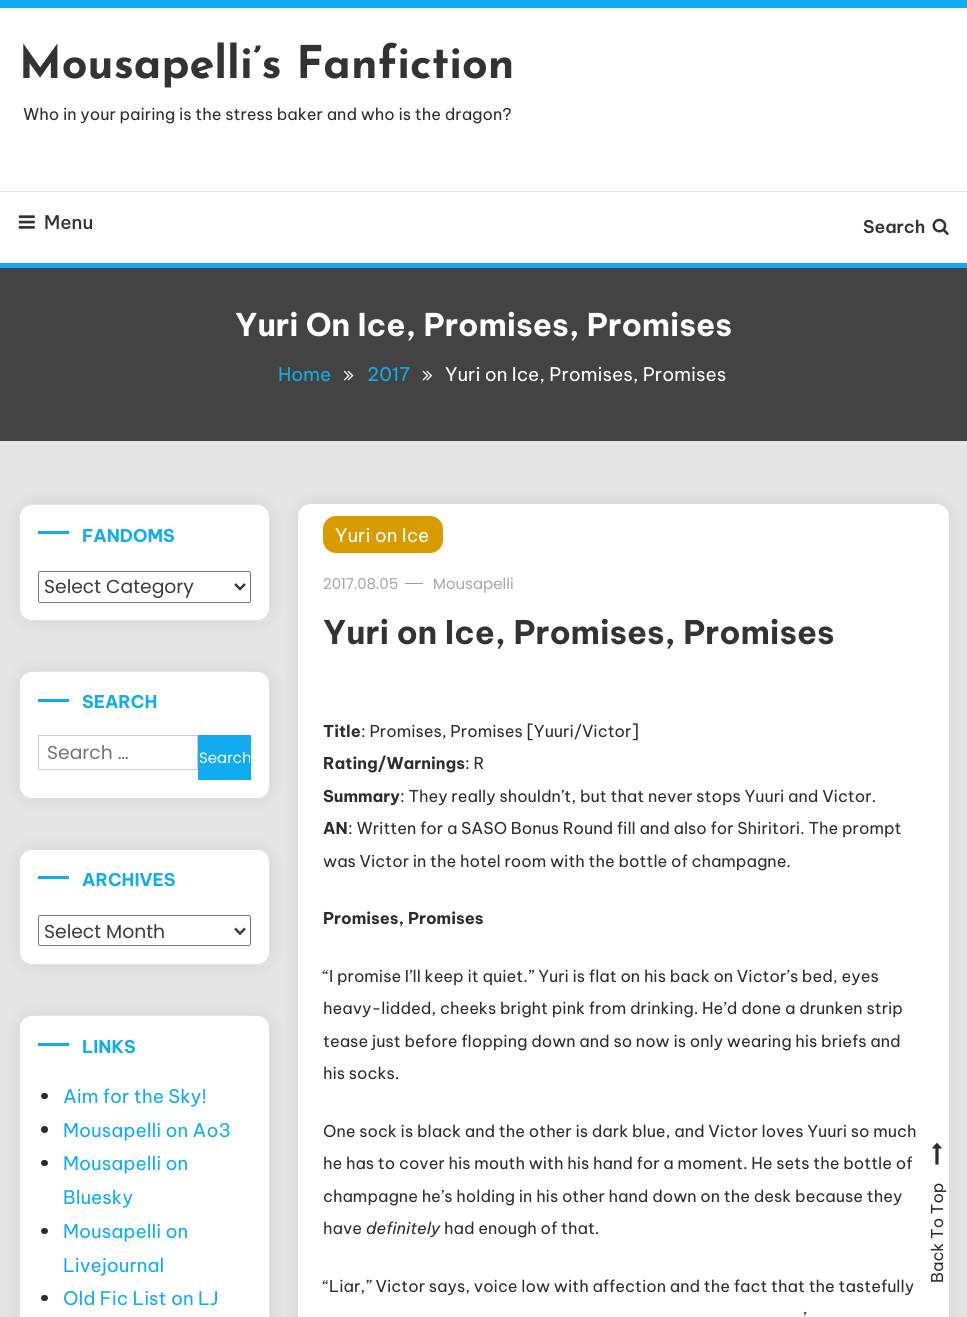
#include <cairo.h>
#include <math.h>
#include <stddef.h>

static cairo_t *c;
static void C(unsigned color){cairo_set_source_rgb(c, (color >> 16) / 255.0, (color >> 8 & 255) / 255.0, (color & 255) / 255.0);}
static void F(const char *family, double size, int italic, int bold){cairo_select_font_face(c, family, italic ? CAIRO_FONT_SLANT_ITALIC : CAIRO_FONT_SLANT_NORMAL,bold ? CAIRO_FONT_WEIGHT_BOLD : CAIRO_FONT_WEIGHT_NORMAL);cairo_set_font_size(c, size);}
static void T(double x, double y, const char *s){cairo_move_to(c, x, y);cairo_show_text(c, s);}
static void R(double x, double y, double w, double h){cairo_rectangle(c, x, y, w, h);cairo_fill(c);}
static void Q(double x, double y, double w, double h, double r){cairo_new_sub_path(c);cairo_arc(c, x + w - r, y + h - r, r, 0, M_PI / 2);cairo_arc(c, x + r, y + h - r, r, M_PI / 2, M_PI);cairo_arc(c, x + r, y + r, r, M_PI, 1.5 * M_PI);cairo_arc(c, x + w - r, y + r, r, 1.5 * M_PI, 2 * M_PI);cairo_close_path(c);}
static void S(double x, double y, double w, double h, double r, double blur, double alpha){cairo_push_group_with_content(c, CAIRO_CONTENT_ALPHA);cairo_set_operator(c, CAIRO_OPERATOR_SOURCE);for (int i = 15; i >= -15 && fmin(w, h) + blur * i / 3 > 0; i -= 2) {double e = blur * i / 6;cairo_set_source_rgba(c, 0, 0, 0, alpha * erfc((i - 1) / 8.5) / 2);Q(x - e, y - e, w + 2 * e, h + 2 * e, fmax(0, fmin(r + e + blur * .6, fmin(w, h) / 2 + e)));cairo_fill(c);}cairo_pattern_t *soft = cairo_pop_group(c);cairo_mask(c, soft);cairo_pattern_destroy(soft);}
static void I(const char *path, double x, double y, double w, double h){cairo_surface_t *image = cairo_image_surface_create_from_png(path);cairo_save(c);cairo_set_source_surface(c, image, x, y);cairo_rectangle(c, x, y, w, h);cairo_fill(c);cairo_restore(c);cairo_surface_destroy(image);}
int main(void) {
cairo_surface_t *surface = cairo_image_surface_create(CAIRO_FORMAT_RGB24, 967, 1317);
c = cairo_create(surface);
cairo_font_options_t *options = cairo_font_options_create();
cairo_font_options_set_hint_metrics(options, CAIRO_HINT_METRICS_OFF);
cairo_font_options_set_hint_style(options, CAIRO_HINT_STYLE_NONE);
cairo_set_font_options(c, options);
cairo_set_miter_limit(c, 4);
C(0xe5e5e5);
cairo_paint(c);
C(0x10acef);
R(0,0,967,8);
C(0xffffff);
R(0,8,967,255);
F("Josefin Sans",45,0,1);
C(0x333333);
T(19,78,"Mousapelli’s Fanfiction");
F("Be Vietnam Pro",16.25,0,0);
C(0x302b2b);
T(23,120,"Who in your pairing is the stress baker and who is the dragon?");
C(0xe1e1e1);
R(0,191,967,1);
I("1.png",18,215,17,14);
F("Be Vietnam Pro Medium",18.75,0,0);
C(0x333333);
T(44,229,"Menu");
F("Be Vietnam Pro SemiBold",17.5,0,0);
T(863,233,"Search");
I("2.png",932,218,17,17);
C(0x434343);
R(0,268,967,173);
C(0x10acef);
R(0,263,967,5);
F("Be Vietnam Pro",31.25,0,1);
C(0xffffff);
T(235,336,"Yuri On Ice, Promises, Promises");
F("Be Vietnam Pro",18.75,0,0);
C(0x10acef);
T(278,381,"Home");
I("3.png",343,370,11,11);
T(367,381,"2017");
I("4.png",422,370,10,11);
C(0xffffff);
T(445,381,"Yuri on Ice, Promises, Promises");
C(0x000000);
S(19,504,251,117,13,9.5,.08);
C(0xffffff);
Q(19.5,504.5,250,116,12.5);
cairo_fill_preserve(c);
C(0xe1e1e1);
cairo_set_line_width(c,1);
cairo_stroke(c);
C(0x10acef);
R(38,531,31,3);
F("Be Vietnam Pro",17.5,0,1);
T(82,542,"FANDOMS");
Q(38.5,571.5,212,31,2);
C(0x767676);
cairo_stroke(c);
cairo_new_path(c);
cairo_move_to(c,235,584);
cairo_line_to(c,240,589);
cairo_line_to(c,245,584);
C(0x3b3b3b);
cairo_set_line_width(c,2.5);
cairo_stroke(c);
F("Poppins",18.75,0,0);
T(44,593,"Select Category");
C(0x000000);
S(19,671,251,128,13,9.5,.08);
C(0xffffff);
Q(19.5,671.5,250,127,12.5);
cairo_fill_preserve(c);
C(0xe1e1e1);
cairo_set_line_width(c,1);
cairo_stroke(c);
C(0x10acef);
R(38,699,31,3);
F("Be Vietnam Pro",17.5,0,1);
T(82,708,"SEARCH");
cairo_rectangle(c,38.5,735.5,159,34);
C(0xcccccc);
cairo_stroke(c);
F("Poppins",18.75,0,0);
C(0x757575);
T(47,759,"Search …");
C(0x10acef);
R(198,735,53,45);
cairo_save(c);
cairo_rectangle(c,199,736,51,43);
cairo_clip(c);
F("Poppins",15,0,0);
C(0xffffff);
T(199,763,"Search");
cairo_restore(c);
C(0x000000);
S(19,849,251,116,13,9.5,.08);
C(0xffffff);
Q(19.5,849.5,250,115,12.5);
cairo_fill_preserve(c);
C(0xe1e1e1);
cairo_stroke(c);
C(0x10acef);
R(38,876,31,3);
F("Be Vietnam Pro",17.5,0,1);
T(82,886,"ARCHIVES");
Q(38.5,915.5,212,30,2);
C(0x767676);
cairo_stroke(c);
cairo_new_path(c);
cairo_move_to(c,235,928.5);
cairo_line_to(c,240,933.5);
cairo_line_to(c,245,928.5);
C(0x3b3b3b);
cairo_set_line_width(c,2.5);
cairo_stroke(c);
F("Poppins",18.75,0,0);
T(44,938,"Select Month");
C(0x000000);
S(19,1015,251,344,13,9.5,.08);
C(0xffffff);
Q(19.5,1015.5,250,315,12.5);
cairo_fill_preserve(c);
C(0xe1e1e1);
cairo_set_line_width(c,1);
cairo_stroke(c);
C(0x10acef);
R(38,1043,31,3);
F("Be Vietnam Pro",17.5,0,1);
T(82,1053,"LINKS");
C(0x302b2b);
Q(41,1093,7,6,3);
cairo_fill(c);
F("Be Vietnam Pro",18.75,0,0);
C(0x10acef);
T(63,1103,"Aim for the Sky!");
C(0x302b2b);
cairo_new_path(c);
cairo_arc(c,44.5,1129.5,3.5,0,2 * M_PI);
cairo_fill(c);
C(0x10acef);
T(63,1137,"Mousapelli on Ao3");
C(0x302b2b);
Q(41,1160,7,6,3);
cairo_fill(c);
C(0x10acef);
T(63,1170,"Mousapelli on");
T(63,1204,"Bluesky");
C(0x302b2b);
Q(41,1228,7,6,3);
cairo_fill(c);
C(0x10acef);
T(63,1238,"Mousapelli on");
T(63,1272,"Livejournal");
C(0x302b2b);
Q(41,1295,7,6,3);
cairo_fill(c);
C(0x10acef);
T(63,1305,"Old Fic List on LJ");
C(0x000000);
S(298,504,651,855,13,9.5,.08);
C(0xffffff);
Q(298,504,651,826,13);
cairo_fill(c);
C(0xd89b00);
Q(323,516,120,37,13);
cairo_fill(c);
C(0xffffff);
T(335,542,"Yuri on Ice");
F("Poppins",15,0,0);
C(0xa6a6a6);
T(323,589,"2017.08.05");
C(0x9f9f9f);
R(405,583,18,1);
C(0xa6a6a6);
T(433,589,"Mousapelli");
F("Be Vietnam Pro",32.5,0,1);
C(0x333333);
T(323,644,"Yuri on Ice, Promises, Promises");
F("Be Vietnam Pro",16.25,0,1);
C(0x302b2b);
T(323,737,"Title");
F("Be Vietnam Pro",16.25,0,0);
T(361,737,": Promises, Promises [Yuuri/Victor]");
F("Be Vietnam Pro",16.25,0,1);
T(323,769,"Rating/Warnings");
F("Be Vietnam Pro",16.25,0,0);
T(465,769,": R");
F("Be Vietnam Pro",16.25,0,1);
T(323,802,"Summary");
F("Be Vietnam Pro",16.25,0,0);
T(400,802,": They really shouldn’t, but that never stops Yuuri and Victor.");
F("Be Vietnam Pro",16.25,0,1);
T(323,834,"AN");
F("Be Vietnam Pro",16.25,0,0);
T(348,834,": Written for a SASO Bonus Round fill and also for Shiritori. The prompt");
T(323,867,"was Victor in the hotel room with the bottle of champagne.");
F("Be Vietnam Pro",16.25,0,1);
T(323,924,"Promises, Promises");
F("Be Vietnam Pro",16.25,0,0);
T(323,982,"“I promise I’ll keep it quiet.” Yuri is flat on his back on Victor’s bed, eyes");
T(323,1014,"heavy-lidded, cheeks bright pink from drinking. He’d done a drunken strip");
T(323,1047,"tease just before flopping down and so now is only wearing his briefs and");
T(323,1079,"his socks.");
T(323,1137,"One sock is black and the other is dark blue, and Victor loves Yuuri so much");
T(323,1169,"he has to cover his mouth with his hand for a moment. He sets the bottle of");
T(323,1202,"champagne he’s holding in his other hand down on the desk because they");
T(323,1234,"have");
F("Be Vietnam Pro",16.25,1,0);
T(366,1234,"definitely");
F("Be Vietnam Pro",16.25,0,0);
T(444,1234,"had enough of that.");
T(323,1292,"“Liar,” Victor says, voice low with affection and the fact that the tastefully");
T(803,1324,"’");
I("5.png",932,1142,10,23);
cairo_save(c);
cairo_translate(c,943,1283);
cairo_rotate(c,-90 * M_PI / 180);
T(0,0,"Back To Top");
cairo_restore(c);
cairo_surface_write_to_png(surface, "o.png");
cairo_font_options_destroy(options);
cairo_destroy(c);
cairo_surface_destroy(surface);
return 0;
}
